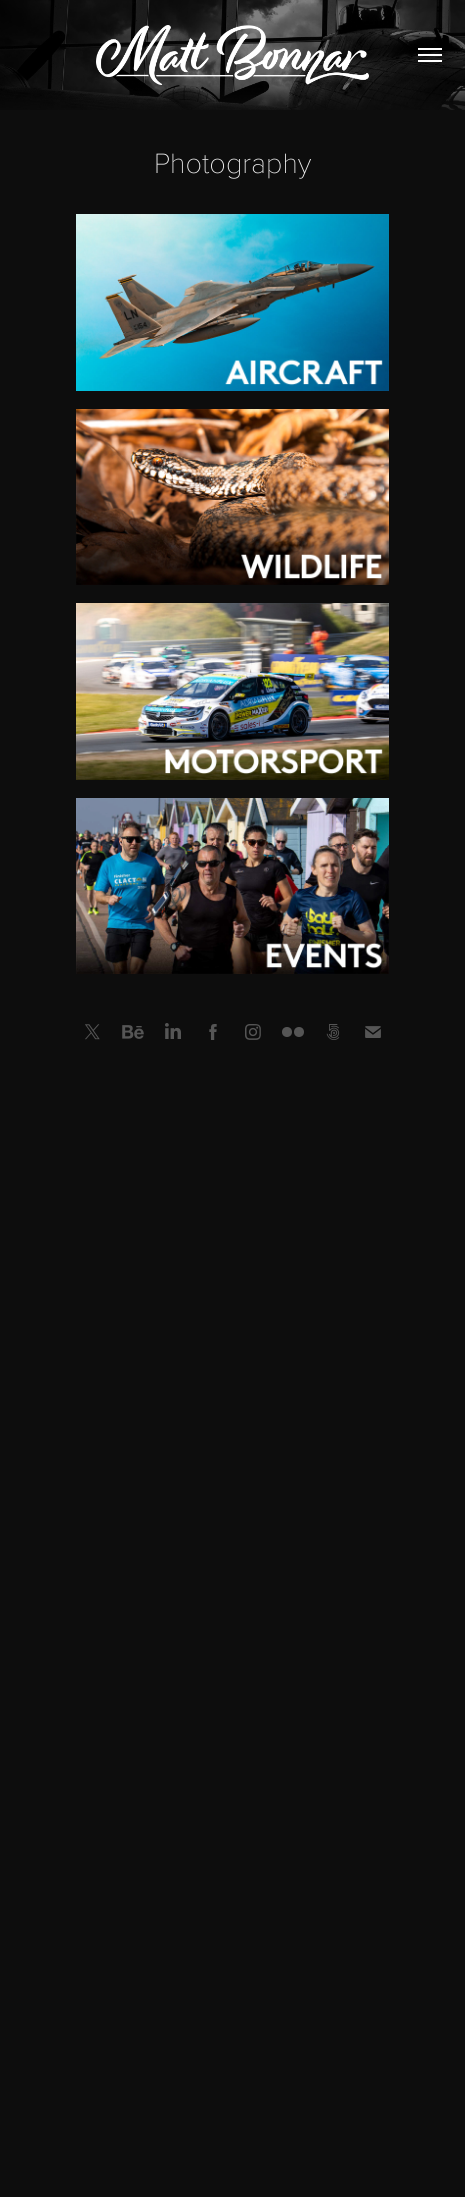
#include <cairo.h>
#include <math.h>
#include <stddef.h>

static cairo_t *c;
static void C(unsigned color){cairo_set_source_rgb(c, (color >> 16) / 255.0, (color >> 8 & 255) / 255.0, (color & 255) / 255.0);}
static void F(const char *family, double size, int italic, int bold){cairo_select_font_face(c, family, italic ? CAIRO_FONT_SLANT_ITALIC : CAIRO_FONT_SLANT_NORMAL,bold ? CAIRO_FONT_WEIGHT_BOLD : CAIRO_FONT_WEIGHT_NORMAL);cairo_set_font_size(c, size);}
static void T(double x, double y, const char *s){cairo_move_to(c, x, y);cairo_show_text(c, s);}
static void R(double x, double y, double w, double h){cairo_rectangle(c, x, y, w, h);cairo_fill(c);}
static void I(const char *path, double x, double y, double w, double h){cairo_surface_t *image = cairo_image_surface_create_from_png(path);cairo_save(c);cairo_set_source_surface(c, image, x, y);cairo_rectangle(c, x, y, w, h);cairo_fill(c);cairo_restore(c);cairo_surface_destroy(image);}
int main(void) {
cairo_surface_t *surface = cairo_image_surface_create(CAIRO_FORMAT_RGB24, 465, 2197);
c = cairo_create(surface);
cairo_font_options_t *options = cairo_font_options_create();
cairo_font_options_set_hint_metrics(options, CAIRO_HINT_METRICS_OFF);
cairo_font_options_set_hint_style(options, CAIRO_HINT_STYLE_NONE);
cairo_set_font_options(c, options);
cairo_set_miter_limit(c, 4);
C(0x0d0d0d);
cairo_paint(c);
I("1.png",0,0,465,110);
I("2.png",96,25,273,60);
C(0xffffff);
R(418,48,24,2);
R(418,54,24,2);
R(418,60,24,2);
F("Proxima Nova Thin",29,0,0);
C(0xeeeeee);
T(154,173,"Photography");
I("3.png",76,214,313,177);
I("4.png",76,409,313,176);
I("5.png",76,603,313,177);
I("6.png",76,798,313,176);
I("7.png",85,1024,15,16);
I("8.png",122,1025,22,14);
I("9.png",165,1023,16,16);
I("10.png",209,1024,8,16);
I("11.png",245,1024,16,16);
C(0x555555);
cairo_arc(c,287,1032,5,0,2 * M_PI);
cairo_fill(c);
cairo_arc(c,299,1032,5,0,2 * M_PI);
cairo_fill(c);
I("12.png",326,1024,14,16);
I("13.png",365,1026,16,12);
cairo_surface_write_to_png(surface, "o.png");
cairo_font_options_destroy(options);
cairo_destroy(c);
cairo_surface_destroy(surface);
return 0;
}
